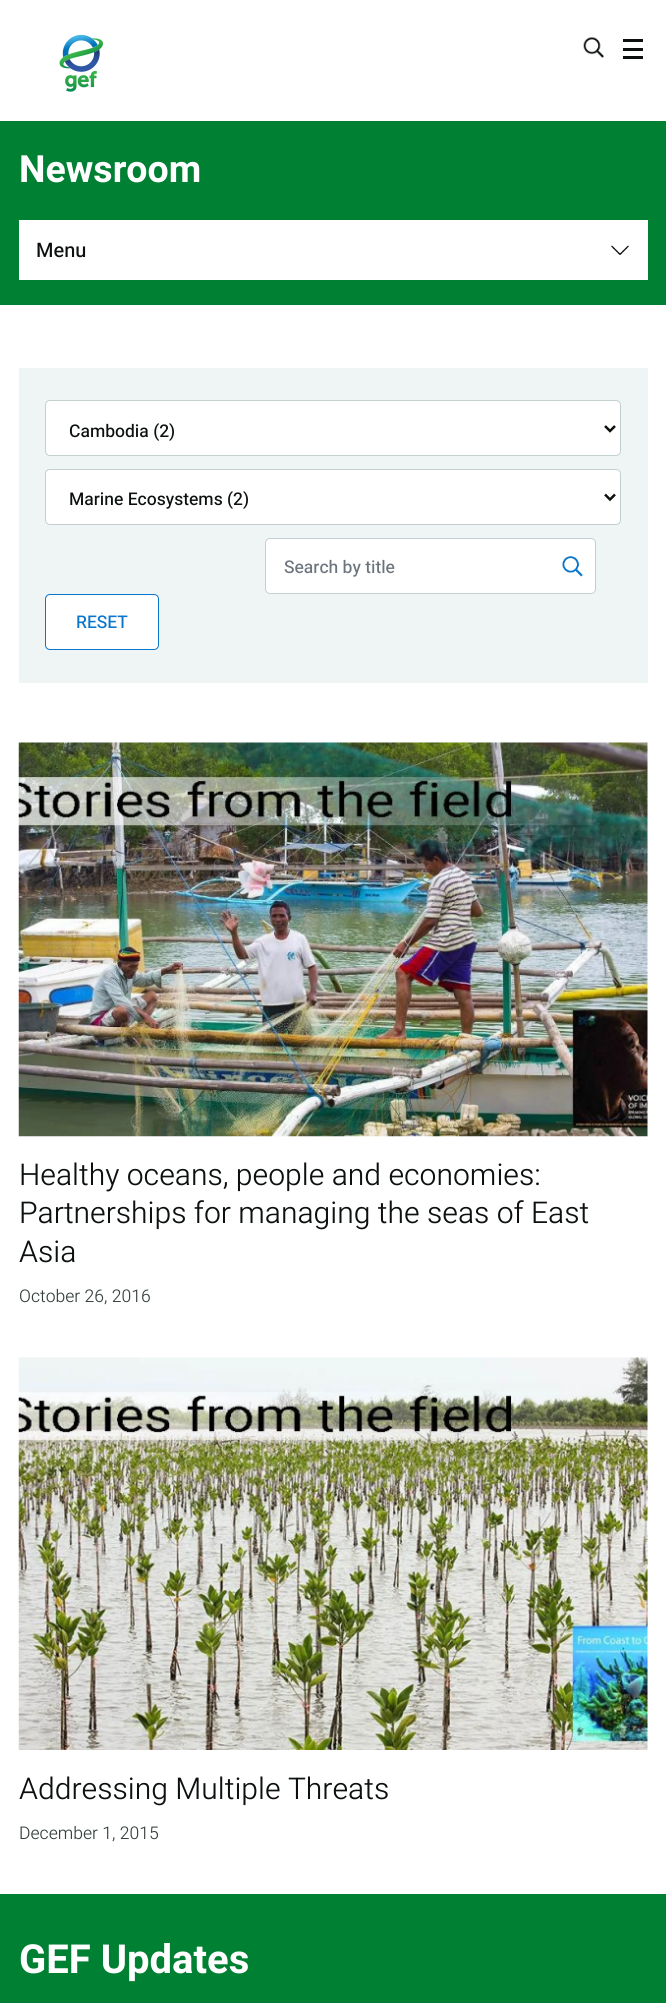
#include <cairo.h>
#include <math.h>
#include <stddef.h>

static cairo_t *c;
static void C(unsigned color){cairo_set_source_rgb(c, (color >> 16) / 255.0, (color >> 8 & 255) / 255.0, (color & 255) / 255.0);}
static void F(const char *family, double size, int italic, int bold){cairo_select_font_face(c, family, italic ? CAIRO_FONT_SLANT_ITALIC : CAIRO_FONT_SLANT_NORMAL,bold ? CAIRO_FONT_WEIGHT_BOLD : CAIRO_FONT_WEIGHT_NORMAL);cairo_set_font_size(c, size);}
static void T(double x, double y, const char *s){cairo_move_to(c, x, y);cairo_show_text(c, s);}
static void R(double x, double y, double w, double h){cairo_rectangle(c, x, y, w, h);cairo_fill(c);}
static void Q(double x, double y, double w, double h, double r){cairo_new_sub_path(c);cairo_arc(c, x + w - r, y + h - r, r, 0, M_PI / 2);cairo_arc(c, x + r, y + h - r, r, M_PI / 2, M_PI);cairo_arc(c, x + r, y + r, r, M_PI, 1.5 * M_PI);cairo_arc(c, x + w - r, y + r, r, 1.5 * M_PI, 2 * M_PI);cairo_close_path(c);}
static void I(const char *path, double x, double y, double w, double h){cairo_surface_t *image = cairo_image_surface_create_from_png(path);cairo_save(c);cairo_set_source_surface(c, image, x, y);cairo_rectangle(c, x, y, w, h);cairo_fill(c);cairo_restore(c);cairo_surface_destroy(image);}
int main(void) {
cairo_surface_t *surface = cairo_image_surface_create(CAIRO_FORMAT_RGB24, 666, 2003);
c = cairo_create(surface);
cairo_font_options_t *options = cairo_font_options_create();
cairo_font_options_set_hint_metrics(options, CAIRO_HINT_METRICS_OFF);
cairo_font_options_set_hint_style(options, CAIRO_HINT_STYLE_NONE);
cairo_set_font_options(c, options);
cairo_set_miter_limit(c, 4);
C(0xffffff);
cairo_paint(c);
I("1.png",59,34,44,58);
I("2.png",583,37,21,21);
C(0x0c110f);
R(623,39,20,3);
R(623,48,20,3);
R(623,56,20,3);
C(0x008033);
R(0,121,666,184);
F("Heebo",37.5,0,1);
C(0xffffff);
T(19,182,"Newsroom");
R(19,220,629,60);
F("Heebo Medium",20,0,0);
C(0x0c110f);
T(36,257,"Menu");
I("3.png",611,245,18,10);
C(0xeff4f4);
R(19,368,629,315);
C(0xffffff);
Q(45.5,400.5,575,55,4.5);
cairo_fill_preserve(c);
C(0xc4cfcf);
cairo_set_line_width(c,1);
cairo_stroke(c);
cairo_new_path(c);
cairo_move_to(c,605,426);
cairo_line_to(c,610,431);
cairo_line_to(c,615,426);
C(0x0c110f);
cairo_set_line_width(c,2.5);
cairo_stroke(c);
F("Heebo Medium",17.5,0,0);
T(69,437,"Cambodia (2)");
C(0xffffff);
Q(45.5,469.5,575,55,4.5);
cairo_fill_preserve(c);
C(0xc4cfcf);
cairo_set_line_width(c,1);
cairo_stroke(c);
cairo_new_path(c);
cairo_move_to(c,605,494.5);
cairo_line_to(c,610,499.5);
cairo_line_to(c,615,494.5);
C(0x0c110f);
cairo_set_line_width(c,2.5);
cairo_stroke(c);
T(69,505,"Marine Ecosystems (2)");
C(0xffffff);
Q(265,538,331,56,5);
cairo_fill(c);
I("4.png",562,556,21,21);
Q(265.5,538.5,330,55,4.5);
C(0xc4cfcf);
cairo_set_line_width(c,1);
cairo_stroke(c);
C(0x6c757d);
T(284,573,"Search by title");
C(0xffffff);
Q(45.5,594.5,113,55,4.5);
cairo_fill_preserve(c);
C(0x0876cd);
cairo_stroke(c);
T(76,628,"RESET");
I("5.png",18,742,630,395);
F("Heebo Light",30,0,0);
C(0x0c110f);
T(19,1185,"Healthy oceans, people and economies:");
T(19,1223,"Partnerships for managing the seas of East");
T(19,1262,"Asia");
F("Heebo Light",17.5,0,0);
C(0x36423e);
T(19,1302,"October 26, 2016");
I("6.png",18,1357,630,393);
F("Heebo Light",30,0,0);
C(0x0c110f);
T(19,1799,"Addressing Multiple Threats");
F("Heebo Light",17.5,0,0);
C(0x36423e);
T(19,1839,"December 1, 2015");
C(0x008033);
R(0,1894,666,109);
F("Heebo",40,0,1);
C(0xffffff);
T(19,1973,"GEF Updates");
cairo_surface_write_to_png(surface, "o.png");
cairo_font_options_destroy(options);
cairo_destroy(c);
cairo_surface_destroy(surface);
return 0;
}
